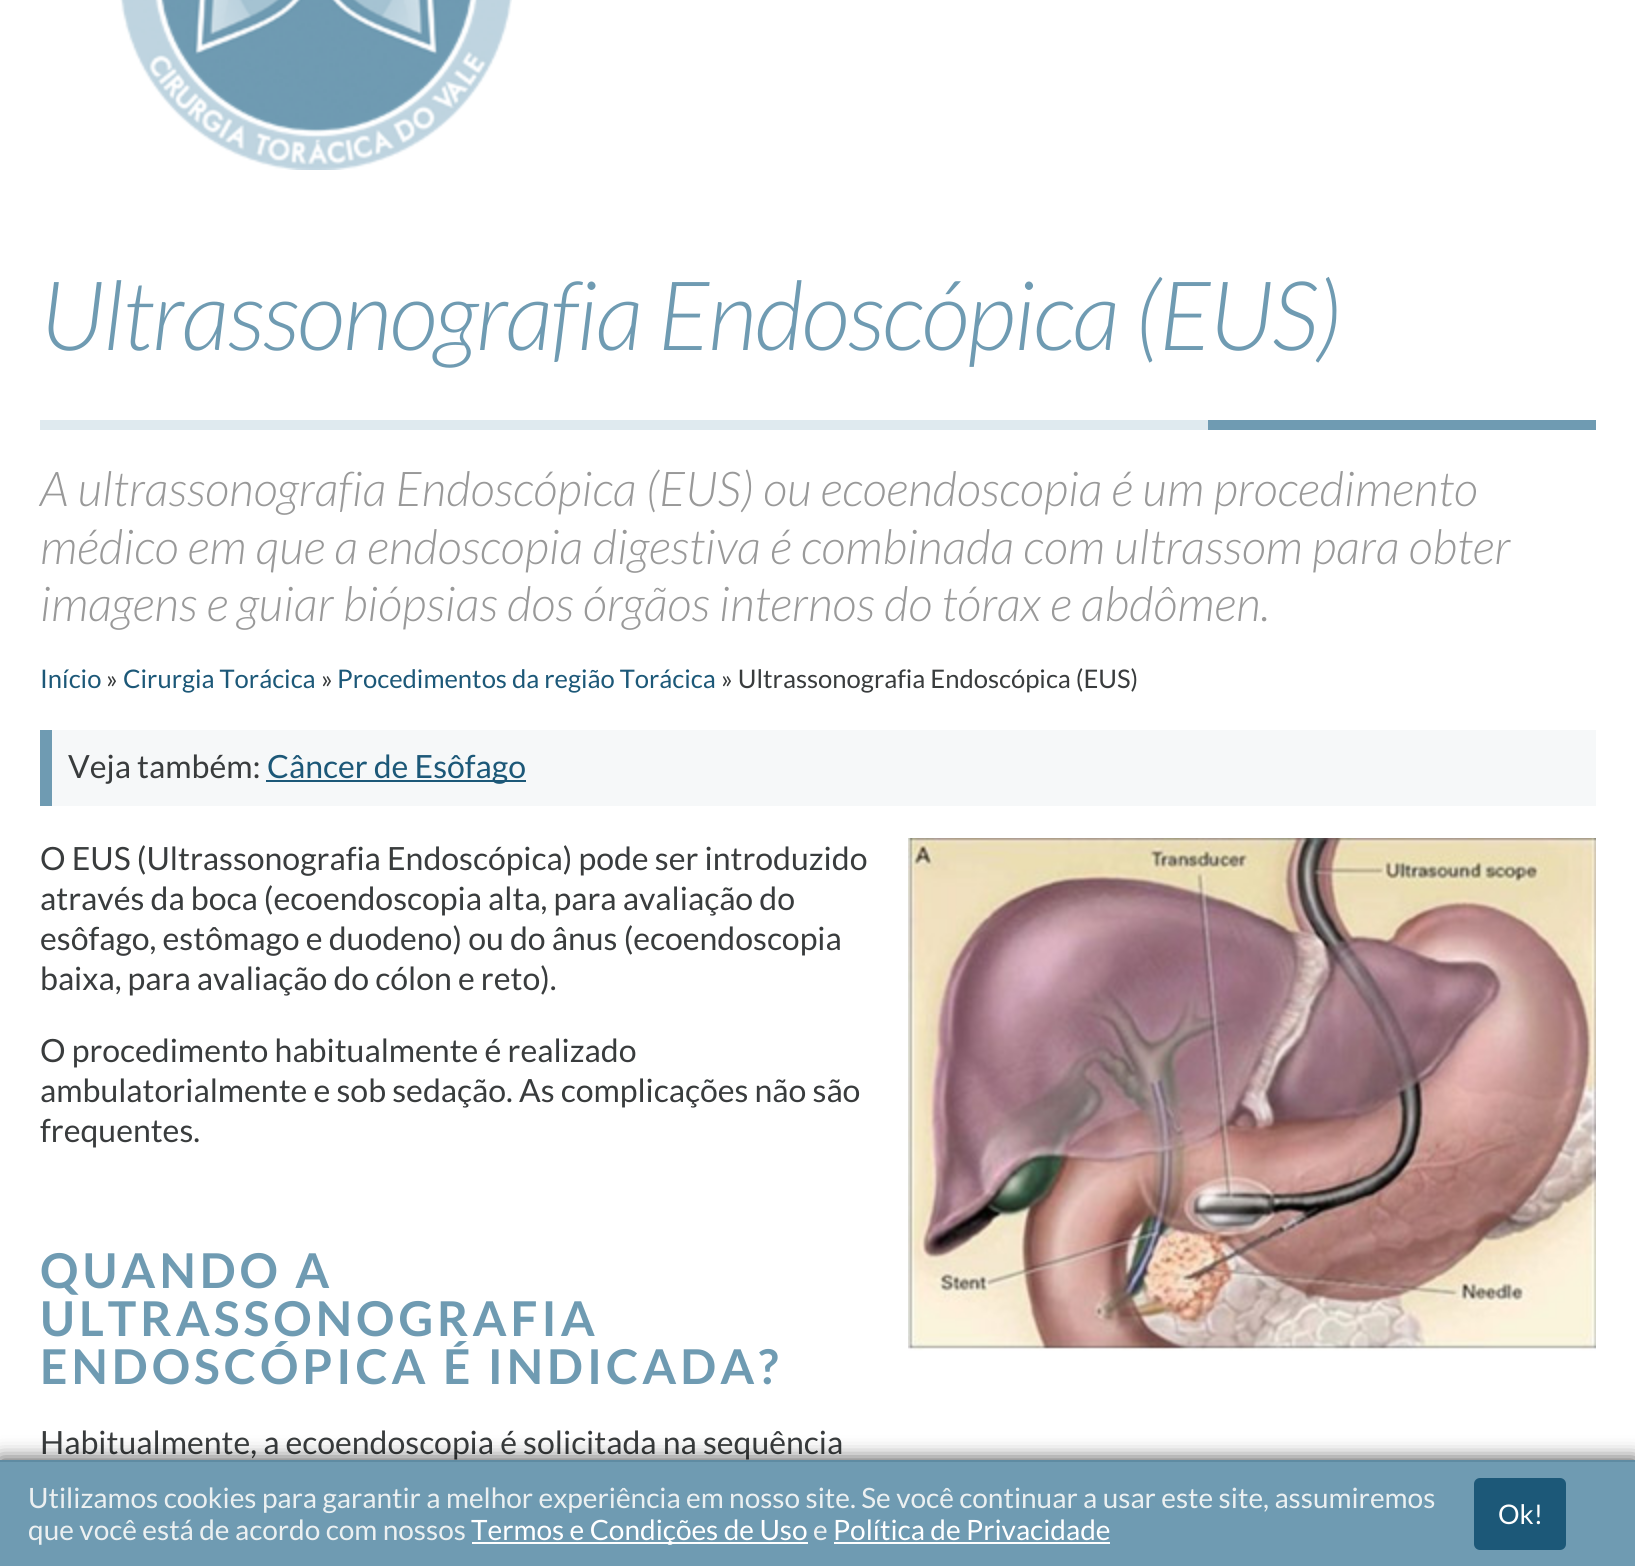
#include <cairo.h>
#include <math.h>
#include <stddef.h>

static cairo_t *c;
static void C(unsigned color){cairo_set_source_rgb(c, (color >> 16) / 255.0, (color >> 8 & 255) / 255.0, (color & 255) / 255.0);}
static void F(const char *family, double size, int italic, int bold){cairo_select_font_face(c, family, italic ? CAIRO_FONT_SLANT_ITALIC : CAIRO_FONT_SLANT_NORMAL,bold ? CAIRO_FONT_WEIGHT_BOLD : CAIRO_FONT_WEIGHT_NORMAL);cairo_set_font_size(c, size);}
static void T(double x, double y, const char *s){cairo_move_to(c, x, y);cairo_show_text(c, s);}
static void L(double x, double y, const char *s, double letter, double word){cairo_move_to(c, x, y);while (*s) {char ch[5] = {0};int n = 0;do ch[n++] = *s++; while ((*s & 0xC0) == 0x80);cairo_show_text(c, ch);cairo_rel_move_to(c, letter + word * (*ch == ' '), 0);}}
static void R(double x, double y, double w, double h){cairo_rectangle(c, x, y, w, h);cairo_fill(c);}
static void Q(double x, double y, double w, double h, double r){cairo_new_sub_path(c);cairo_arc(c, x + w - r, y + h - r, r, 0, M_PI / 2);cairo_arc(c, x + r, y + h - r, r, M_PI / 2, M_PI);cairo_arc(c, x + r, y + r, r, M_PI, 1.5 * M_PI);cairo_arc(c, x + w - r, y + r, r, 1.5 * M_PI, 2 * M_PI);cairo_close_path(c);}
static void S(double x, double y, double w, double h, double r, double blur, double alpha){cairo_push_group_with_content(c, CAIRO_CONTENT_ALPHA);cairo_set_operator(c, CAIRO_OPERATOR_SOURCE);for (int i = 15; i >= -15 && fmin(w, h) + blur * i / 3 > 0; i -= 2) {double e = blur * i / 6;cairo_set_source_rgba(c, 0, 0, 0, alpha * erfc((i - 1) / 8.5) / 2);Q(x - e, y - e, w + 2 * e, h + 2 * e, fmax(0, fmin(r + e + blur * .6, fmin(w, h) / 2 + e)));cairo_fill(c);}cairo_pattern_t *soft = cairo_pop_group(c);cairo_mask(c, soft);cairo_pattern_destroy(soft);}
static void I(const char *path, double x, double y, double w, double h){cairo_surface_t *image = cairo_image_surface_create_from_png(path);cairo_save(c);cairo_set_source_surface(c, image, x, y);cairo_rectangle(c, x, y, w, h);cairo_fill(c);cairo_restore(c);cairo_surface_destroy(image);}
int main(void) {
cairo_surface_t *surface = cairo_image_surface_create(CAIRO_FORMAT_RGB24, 1635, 1566);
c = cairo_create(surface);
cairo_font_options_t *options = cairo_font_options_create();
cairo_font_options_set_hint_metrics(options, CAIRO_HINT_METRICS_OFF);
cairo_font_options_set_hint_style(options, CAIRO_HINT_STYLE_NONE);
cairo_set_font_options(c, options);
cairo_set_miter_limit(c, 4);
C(0xffffff);
cairo_paint(c);
I("1.png",120,0,392,170);
F("Lato Light",96,1,0);
C(0x6f9bb2);
L(40,350,"Ultrassonografia Endoscópica (EUS)",-2,0);
C(0xdfeaef);
R(40,420,1168,10);
C(0x6f9bb2);
R(1208,420,388,10);
F("Lato Light",48,1,0);
C(0x999999);
T(40,506,"A ultrassonografia Endoscópica (EUS) ou ecoendoscopia é um procedimento");
T(40,564,"médico em que a endoscopia digestiva é combinada com ultrassom para obter");
T(40,621,"imagens e guiar biópsias dos órgãos internos do tórax e abdômen.");
F("Lato",25.6,0,0);
C(0x1c5878);
T(40,688,"Início");
C(0x393c3d);
T(106,688,"»");
C(0x1c5878);
T(123,688,"Cirurgia Torácica");
C(0x393c3d);
T(321,688,"»");
C(0x1c5878);
T(337,688,"Procedimentos da região Torácica");
C(0x393c3d);
T(721,688,"» Ultrassonografia Endoscópica (EUS)");
C(0xf6f8f9);
R(52,730,1544,76);
C(0x6f9bb2);
R(40,730,12,76);
F("Lato",32,0,0);
C(0x393c3d);
T(68,778,"Veja também:");
C(0x1c5878);
R(266,780,260,2);
T(267,778,"Câncer de Esôfago");
C(0x393c3d);
T(40,870,"O EUS (Ultrassonografia Endoscópica) pode ser introduzido");
T(40,910,"através da boca (ecoendoscopia alta, para avaliação do");
T(40,950,"esôfago, estômago e duodeno) ou do ânus (ecoendoscopia");
T(40,990,"baixa, para avaliação do cólon e reto).");
I("2.png",908,838,688,622);
T(40,1062,"O procedimento habitualmente é realizado");
T(40,1102,"ambulatorialmente e sob sedação. As complicações não são");
T(40,1142,"frequentes.");
F("Lato",48,0,1);
C(0x6f9bb2);
L(40,1288,"QUANDO A",4,0);
L(40,1336,"ULTRASSONOGRAFIA",4,0);
L(40,1384,"ENDOSCÓPICA É INDICADA?",4,0);
F("Lato",32,0,0);
C(0x393c3d);
T(40,1454,"Habitualmente, a ecoendoscopia é solicitada na sequência");
C(0x000000);
S(0,1460,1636,106,0,10,.75);
C(0x6f9bb2);
R(0,1462,1635,104);
C(0x5f8ba2);
R(0,1460,1635,2);
F("Lato",28,0,0);
C(0xecf0f1);
T(28,1508,"Utilizamos cookies para garantir a melhor experiência em nosso site. Se você continuar a usar este site, assumiremos");
T(28,1540,"que você está de acordo com nossos");
C(0xffffff);
R(472,1542,336,2);
T(471,1540,"Termos e Condições de Uso");
C(0xecf0f1);
T(813,1540,"e");
C(0xffffff);
T(833,1540,"Política de Privacidade");
R(834,1542,276,2);
C(0x1c5878);
Q(1474,1478,92,72,6);
cairo_fill(c);
F("Lato",27,0,0);
C(0xffffff);
T(1498,1524,"Ok!");
cairo_surface_write_to_png(surface, "o.png");
cairo_font_options_destroy(options);
cairo_destroy(c);
cairo_surface_destroy(surface);
return 0;
}
